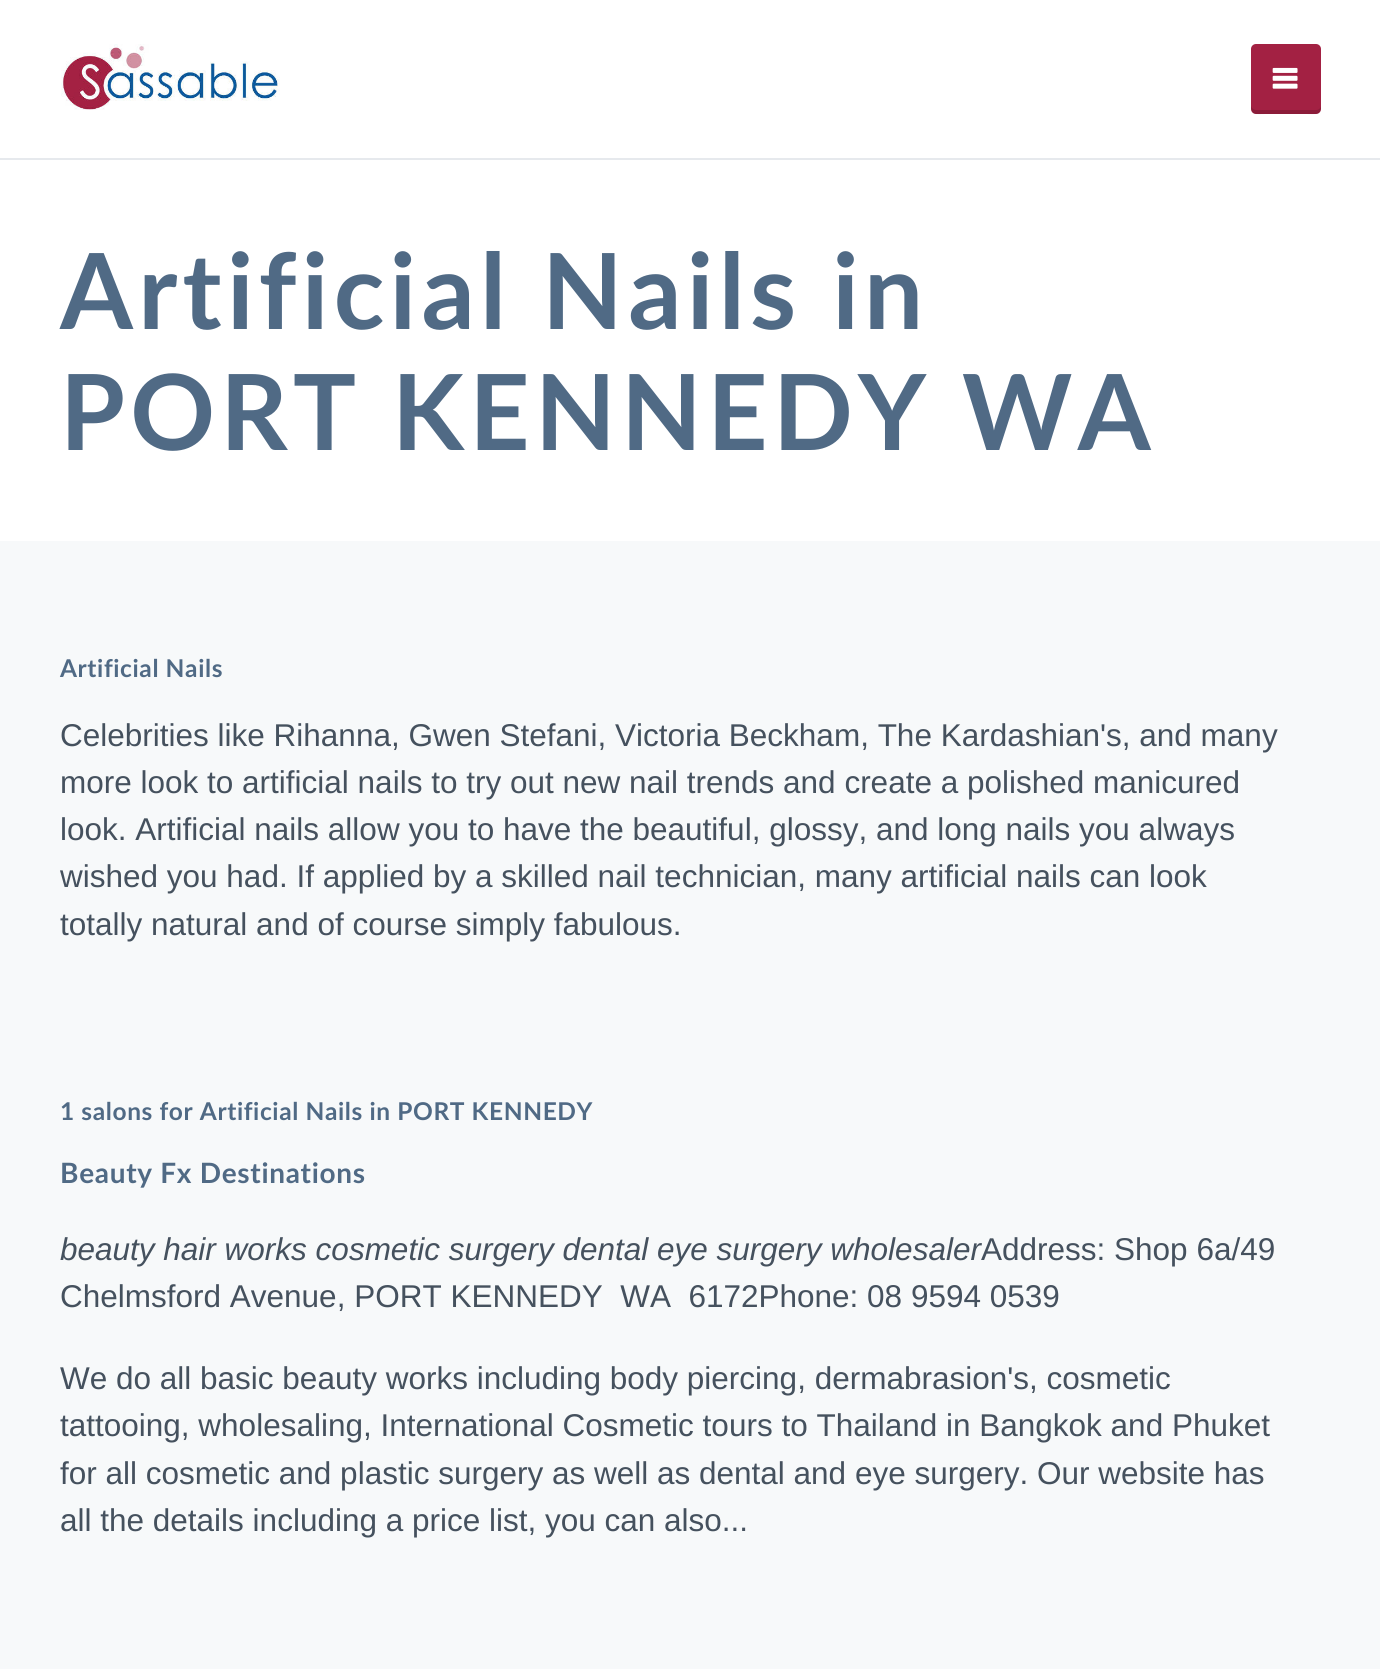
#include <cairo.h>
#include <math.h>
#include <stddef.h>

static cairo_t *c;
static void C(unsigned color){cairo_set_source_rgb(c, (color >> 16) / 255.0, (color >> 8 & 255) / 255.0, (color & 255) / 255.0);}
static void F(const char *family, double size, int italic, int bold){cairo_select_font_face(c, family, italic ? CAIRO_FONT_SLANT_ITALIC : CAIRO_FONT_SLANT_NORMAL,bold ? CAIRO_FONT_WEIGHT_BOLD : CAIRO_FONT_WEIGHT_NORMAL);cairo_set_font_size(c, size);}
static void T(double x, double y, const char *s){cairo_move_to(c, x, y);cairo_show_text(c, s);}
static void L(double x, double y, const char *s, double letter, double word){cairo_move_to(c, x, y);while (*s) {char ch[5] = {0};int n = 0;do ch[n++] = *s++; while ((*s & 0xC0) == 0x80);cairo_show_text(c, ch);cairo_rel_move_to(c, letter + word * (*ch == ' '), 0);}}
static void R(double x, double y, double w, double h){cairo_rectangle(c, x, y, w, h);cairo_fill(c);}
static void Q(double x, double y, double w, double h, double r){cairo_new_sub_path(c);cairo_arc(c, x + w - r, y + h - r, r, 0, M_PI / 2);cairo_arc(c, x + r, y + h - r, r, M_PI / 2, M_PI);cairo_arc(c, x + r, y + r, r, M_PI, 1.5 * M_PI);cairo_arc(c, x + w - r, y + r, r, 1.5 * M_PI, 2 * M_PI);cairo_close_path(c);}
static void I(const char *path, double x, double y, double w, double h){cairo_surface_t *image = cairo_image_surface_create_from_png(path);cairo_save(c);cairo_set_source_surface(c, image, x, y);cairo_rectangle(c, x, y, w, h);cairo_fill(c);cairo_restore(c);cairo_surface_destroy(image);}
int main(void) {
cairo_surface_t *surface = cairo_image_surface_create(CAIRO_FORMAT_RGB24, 1380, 1669);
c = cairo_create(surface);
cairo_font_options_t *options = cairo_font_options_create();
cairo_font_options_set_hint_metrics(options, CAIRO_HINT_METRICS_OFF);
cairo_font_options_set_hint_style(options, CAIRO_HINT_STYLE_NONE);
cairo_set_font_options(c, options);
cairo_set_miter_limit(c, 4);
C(0xffffff);
cairo_paint(c);
C(0xe6e9ed);
R(0,158,1380,2);
I("1.png",61,44,219,66);
C(0xa32143);
Q(1251,44,70,70,5);
cairo_fill(c);
cairo_set_source_rgba(c,0,0,0,0.15);
cairo_new_path(c);
cairo_move_to(c,1251,105);
cairo_curve_to(c,1251,116,1255,114,1266,114);
cairo_line_to(c,1306,114);
cairo_curve_to(c,1317,114,1321,116,1321,105);
cairo_curve_to(c,1321,108,1319,110,1316,110);
cairo_line_to(c,1256,110);
cairo_curve_to(c,1254,110,1251,108,1251,105);
cairo_close_path(c);
cairo_fill(c);
I("2.png",1272,67,26,22);
F("Lato",105,0,1);
C(0x506a85);
L(60,329,"Artificial Nails in",5.25,0);
L(60,450,"PORT KENNEDY WA",5.25,0);
C(0xf7f9fa);
R(0,541,1380,1128);
F("Lato",24.5,0,1);
C(0x506a85);
L(60,677,"Artificial Nails",.6,0);
F("Liberation Sans",31.5,0,0);
C(0x45515e);
T(60,746,"Celebrities like Rihanna, Gwen Stefani, Victoria Beckham, The Kardashian's, and many");
T(60,793,"more look to artificial nails to try out new nail trends and create a polished manicured");
T(60,840,"look. Artificial nails allow you to have the beautiful, glossy, and long nails you always");
T(60,887,"wished you had. If applied by a skilled nail technician, many artificial nails can look");
T(60,935,"totally natural and of course simply fabulous.");
F("Lato",24.5,0,1);
C(0x506a85);
L(60,1120,"1 salons for Artificial Nails in PORT KENNEDY",.6,0);
F("Lato",28,0,1);
L(60,1183,"Beauty Fx Destinations",.7,0);
F("Liberation Sans",31.5,1,0);
C(0x45515e);
T(60,1260,"beauty hair works cosmetic surgery dental eye surgery wholesaler");
F("Liberation Sans",31.5,0,0);
T(981,1260,"Address: Shop 6a/49");
T(60,1307,"Chelmsford Avenue, PORT KENNEDY  WA  6172Phone: 08 9594 0539");
T(60,1389,"We do all basic beauty works including body piercing, dermabrasion's, cosmetic");
T(60,1436,"tattooing, wholesaling, International Cosmetic tours to Thailand in Bangkok and Phuket");
T(60,1484,"for all cosmetic and plastic surgery as well as dental and eye surgery. Our website has");
T(60,1531,"all the details including a price list, you can also...");
cairo_surface_write_to_png(surface, "o.png");
cairo_font_options_destroy(options);
cairo_destroy(c);
cairo_surface_destroy(surface);
return 0;
}
